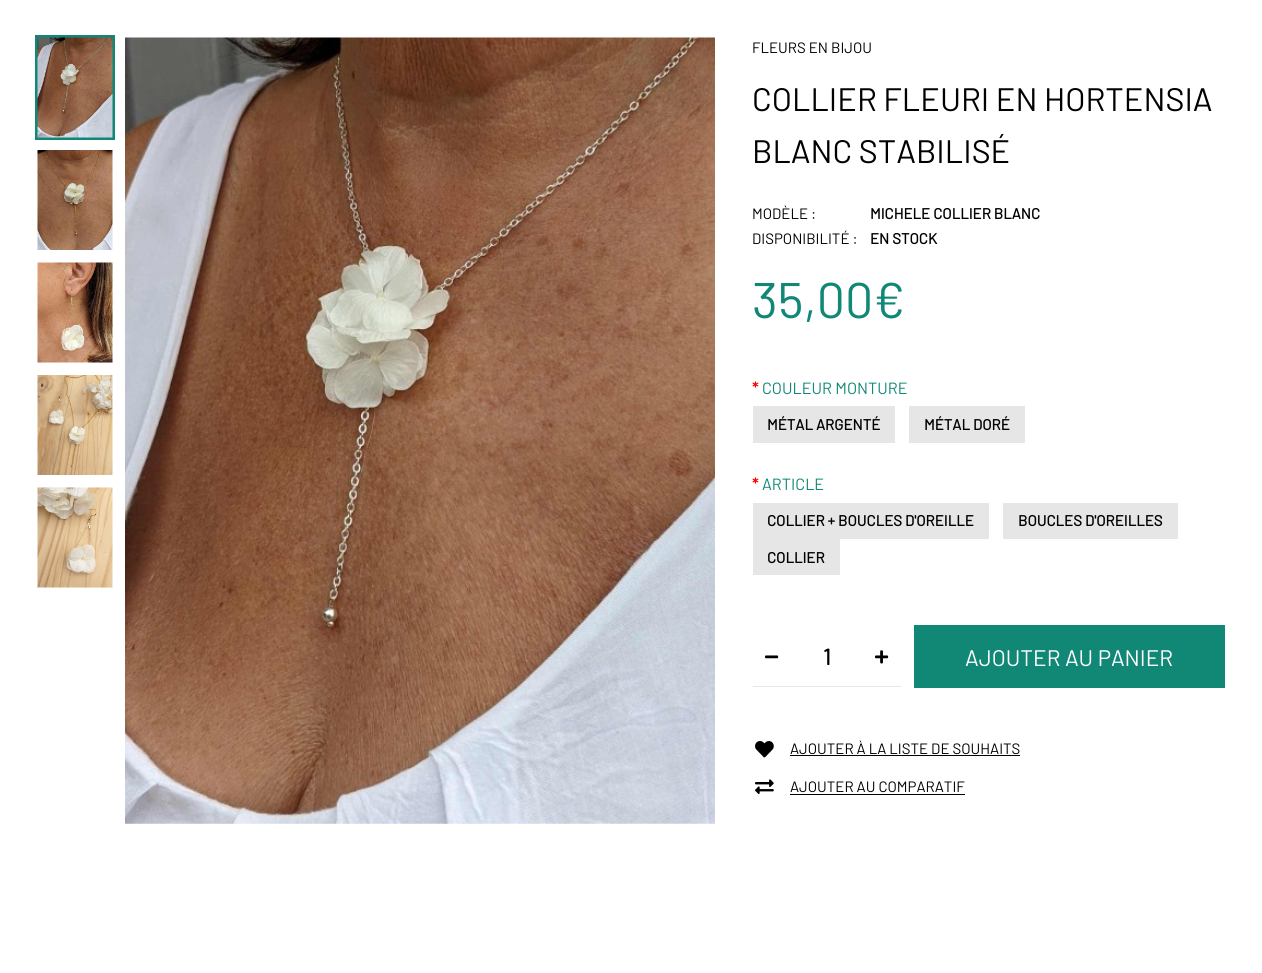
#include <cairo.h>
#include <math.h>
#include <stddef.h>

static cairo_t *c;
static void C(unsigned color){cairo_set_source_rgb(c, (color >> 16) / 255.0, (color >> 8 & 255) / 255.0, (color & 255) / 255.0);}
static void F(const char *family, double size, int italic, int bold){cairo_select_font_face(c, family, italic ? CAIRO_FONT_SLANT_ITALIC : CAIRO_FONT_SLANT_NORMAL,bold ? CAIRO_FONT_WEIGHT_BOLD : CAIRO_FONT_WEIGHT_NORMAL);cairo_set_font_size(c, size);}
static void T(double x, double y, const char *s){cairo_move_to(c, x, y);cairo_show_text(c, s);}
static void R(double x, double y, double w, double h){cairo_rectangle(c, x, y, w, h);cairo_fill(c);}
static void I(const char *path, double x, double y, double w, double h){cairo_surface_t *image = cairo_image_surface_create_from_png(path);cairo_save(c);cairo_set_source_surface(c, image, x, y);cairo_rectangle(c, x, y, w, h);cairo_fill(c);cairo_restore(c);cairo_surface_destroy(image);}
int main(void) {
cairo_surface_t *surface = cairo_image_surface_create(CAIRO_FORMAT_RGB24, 1262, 973);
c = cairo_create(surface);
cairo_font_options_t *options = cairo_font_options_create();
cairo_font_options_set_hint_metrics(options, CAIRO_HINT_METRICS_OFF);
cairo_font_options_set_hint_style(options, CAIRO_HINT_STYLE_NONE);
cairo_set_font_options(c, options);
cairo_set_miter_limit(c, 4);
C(0xffffff);
cairo_paint(c);
cairo_rectangle(c,36.5,36.5,77,102);
C(0x118776);
cairo_set_line_width(c,3);
cairo_stroke(c);
I("1.png",37,37,76,101);
I("2.png",37,150,76,100);
I("3.png",37,262,76,101);
I("4.png",37,375,76,100);
I("5.png",37,487,76,101);
I("6.png",125,37,590,787);
F("Barlow",15,0,0);
C(0x000000);
T(752,53,"FLEURS EN BIJOU");
F("Barlow",32.5,0,0);
T(752,111,"COLLIER FLEURI EN HORTENSIA");
T(752,163,"BLANC STABILISÉ");
F("Barlow",15,0,0);
T(752,219,"MODÈLE :");
T(752,244,"DISPONIBILITÉ :");
F("Barlow",15,0,1);
T(870,219,"MICHELE COLLIER BLANC");
T(870,244,"EN STOCK");
F("Barlow",50,0,0);
C(0x118776);
T(752,318,"35,00€");
F("Barlow",16.25,0,1);
C(0xff0000);
T(752,394,"*");
F("Barlow",16.25,0,0);
C(0x118776);
T(762,394,"COULEUR MONTURE");
C(0xe6e6e6);
R(753,406,142,37);
F("Barlow",15,0,1);
C(0x000000);
T(767,430,"MÉTAL ARGENTÉ");
C(0xe6e6e6);
R(909,406,116,37);
C(0x000000);
T(924,430,"MÉTAL DORÉ");
F("Barlow",16.25,0,1);
C(0xff0000);
T(752,490,"*");
F("Barlow",16.25,0,0);
C(0x118776);
T(762,490,"ARTICLE");
C(0xe6e6e6);
R(753,503,236,36);
F("Barlow",15,0,1);
C(0x000000);
T(767,526,"COLLIER + BOUCLES D'OREILLE");
C(0xe6e6e6);
R(1003,503,175,36);
C(0x000000);
T(1018,526,"BOUCLES D'OREILLES");
C(0xe6e6e6);
R(753,539,87,36);
C(0x000000);
T(767,563,"COLLIER");
I("7.png",765,655,14,4);
C(0xe6e6e6);
R(753,686,148,1);
F("Barlow",22.5,0,1);
C(0x000000);
T(823,665,"1");
I("8.png",875,650,14,14);
C(0x118776);
R(914,625,311,63);
F("Barlow",22.5,0,0);
C(0xffffff);
T(965,666,"AJOUTER AU PANIER");
I("9.png",755,741,19,17);
F("Barlow",15,0,0);
C(0x000000);
T(790,754,"AJOUTER À LA LISTE DE SOUHAITS");
R(790,755,230,1);
I("10.png",755,779,19,15);
T(790,792,"AJOUTER AU COMPARATIF");
R(790,794,175,1);
cairo_surface_write_to_png(surface, "o.png");
cairo_font_options_destroy(options);
cairo_destroy(c);
cairo_surface_destroy(surface);
return 0;
}
